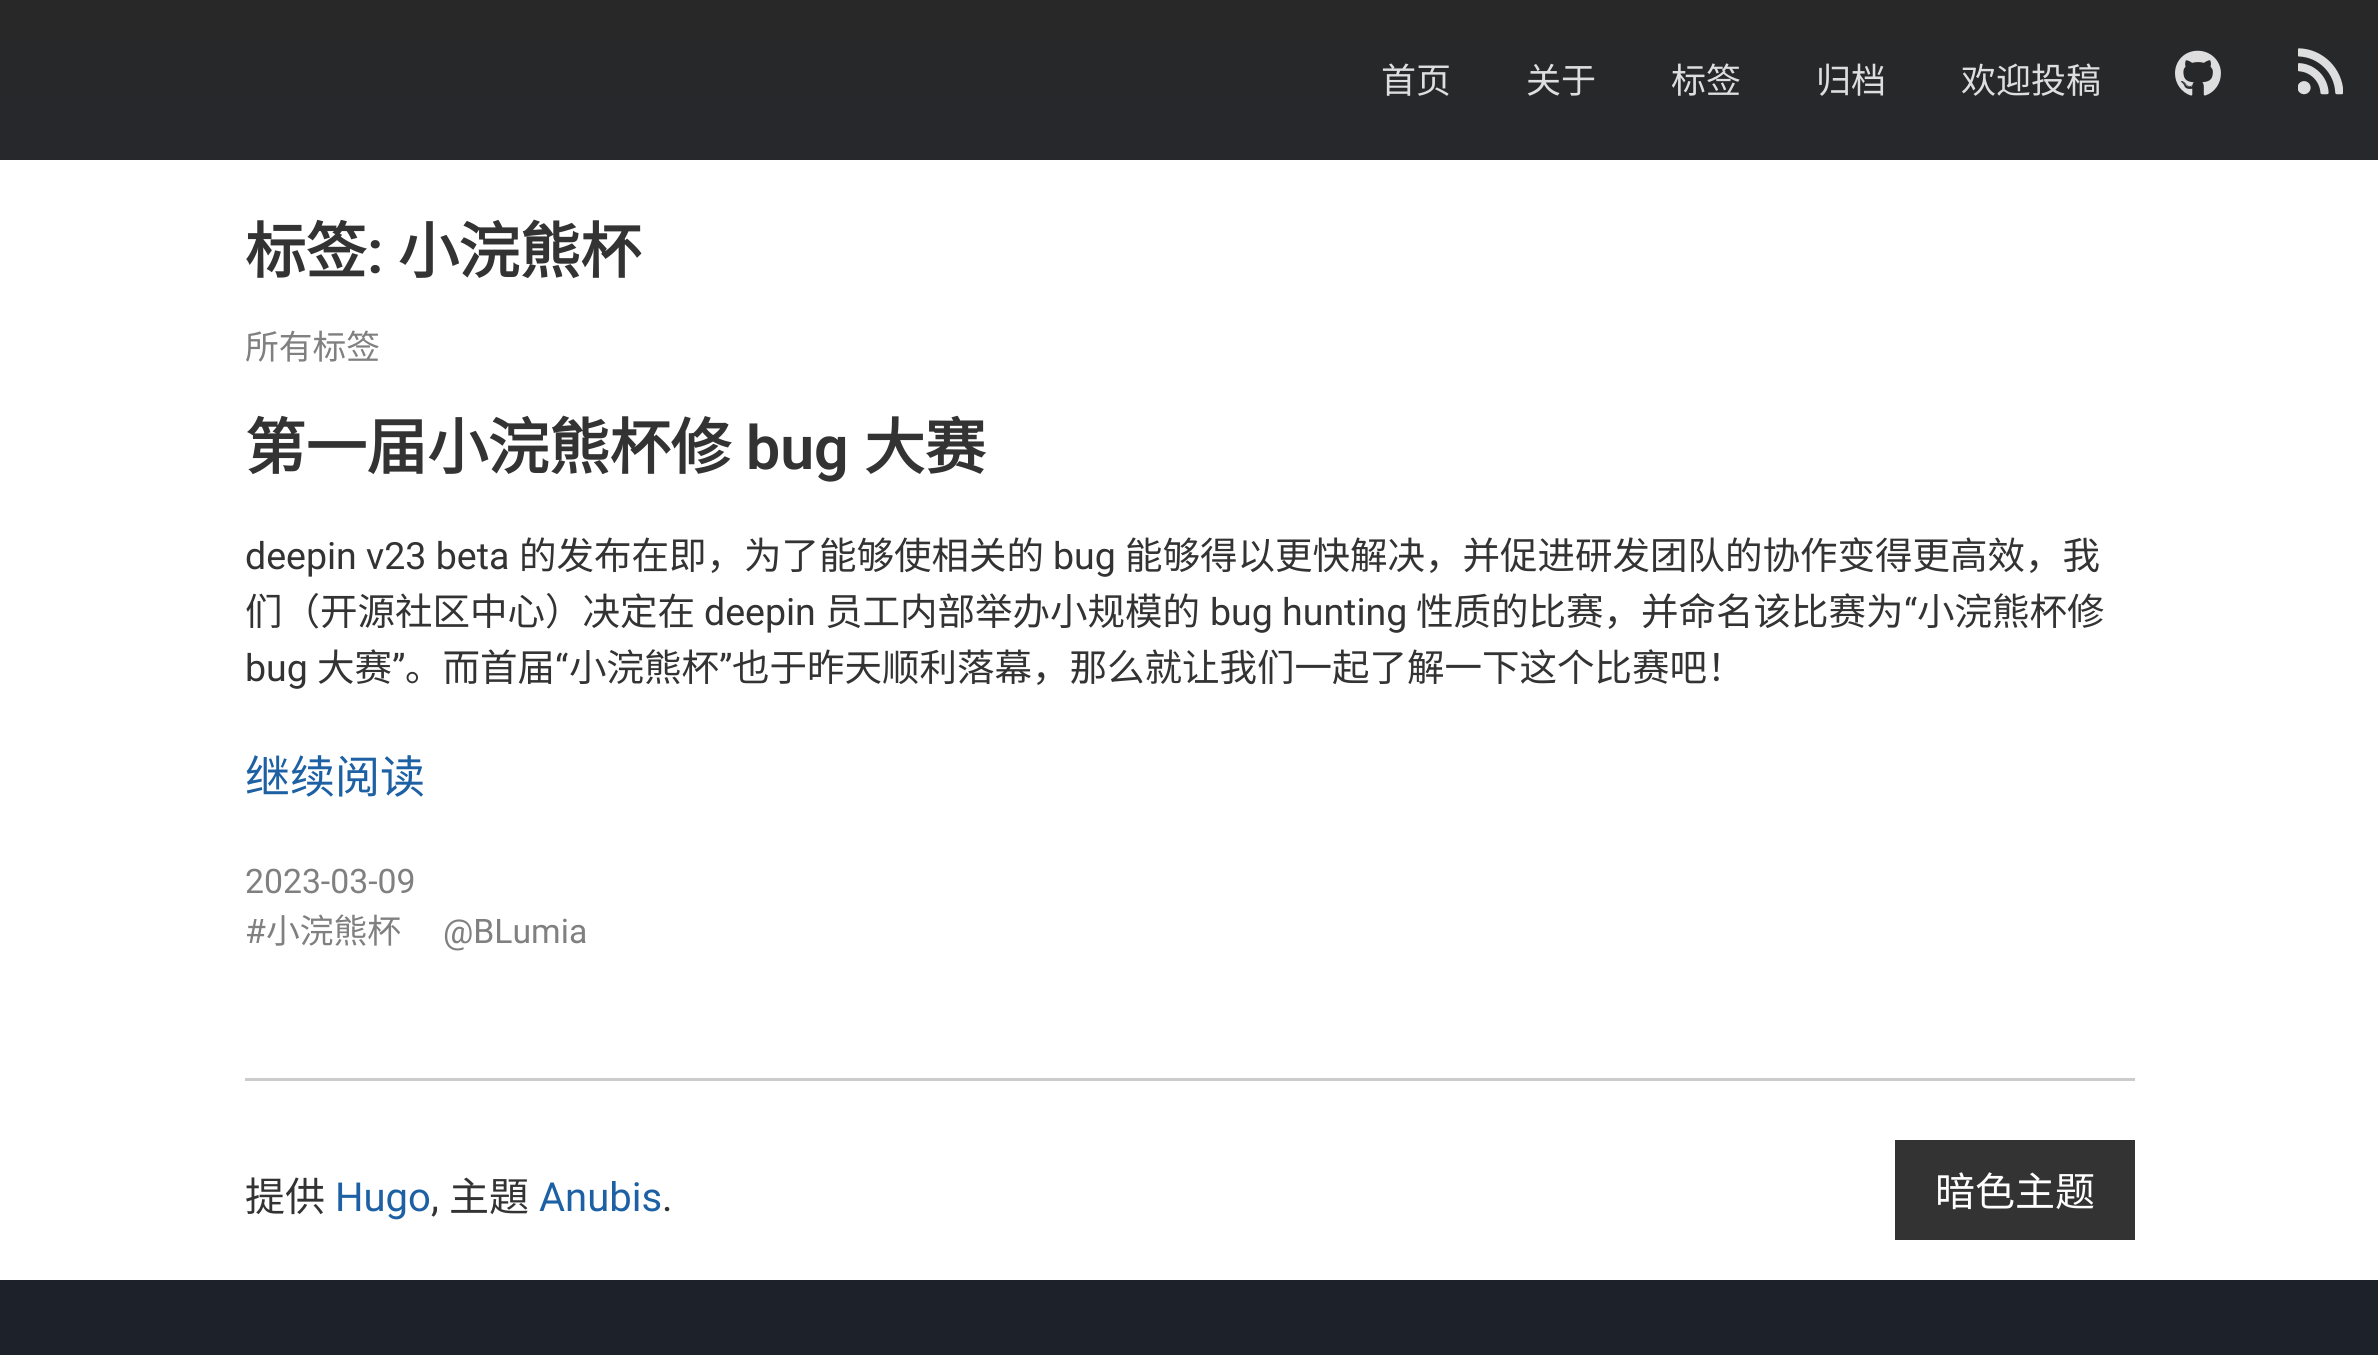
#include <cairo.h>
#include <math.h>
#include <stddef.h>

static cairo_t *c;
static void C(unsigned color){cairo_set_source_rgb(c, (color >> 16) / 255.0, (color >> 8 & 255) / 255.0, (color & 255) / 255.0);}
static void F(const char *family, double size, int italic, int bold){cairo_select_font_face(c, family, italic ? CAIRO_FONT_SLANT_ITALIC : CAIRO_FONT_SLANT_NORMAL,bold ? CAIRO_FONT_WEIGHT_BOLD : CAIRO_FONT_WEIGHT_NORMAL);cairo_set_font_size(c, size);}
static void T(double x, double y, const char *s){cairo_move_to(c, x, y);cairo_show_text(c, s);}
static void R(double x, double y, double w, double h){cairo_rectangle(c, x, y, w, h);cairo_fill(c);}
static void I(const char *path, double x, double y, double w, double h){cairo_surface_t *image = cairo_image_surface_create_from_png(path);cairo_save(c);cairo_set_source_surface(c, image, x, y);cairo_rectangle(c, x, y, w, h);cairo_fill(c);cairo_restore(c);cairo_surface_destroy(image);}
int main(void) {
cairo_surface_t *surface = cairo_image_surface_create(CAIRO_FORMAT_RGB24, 2378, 1355);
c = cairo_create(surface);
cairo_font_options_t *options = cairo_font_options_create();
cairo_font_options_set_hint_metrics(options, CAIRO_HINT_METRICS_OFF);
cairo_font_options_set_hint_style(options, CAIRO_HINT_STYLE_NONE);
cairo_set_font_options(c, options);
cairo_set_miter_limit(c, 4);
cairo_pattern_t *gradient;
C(0xffffff);
cairo_paint(c);
gradient = cairo_pattern_create_linear(1190,0,1190,160);
cairo_pattern_add_color_stop_rgba(gradient,0,0.157,0.157,0.157,1);
cairo_pattern_add_color_stop_rgba(gradient,1,0.149,0.157,0.173,1);
cairo_set_source(c,gradient);
cairo_pattern_destroy(gradient);
R(0,0,2378,160);
F("Noto Sans CJK SC",35,0,0);
C(0xdedede);
T(1381,93,"首页");
T(1526,93,"关于");
T(1671,93,"标签");
T(1816,93,"归档");
T(1961,93,"欢迎投稿");
I("1.png",2175,50,46,46);
I("2.png",2298,48,45,47);
F("Noto Sans CJK SC",60.75,0,1);
C(0x333333);
T(245,273,"标签");
F("Roboto SemiBold",60.75,0,0);
T(367,273,":");
F("Noto Sans CJK SC",60.75,0,1);
T(398,273,"小浣熊杯");
F("Noto Sans CJK SC",33.75,0,0);
C(0x808080);
T(245,359,"所有标签");
F("Noto Sans CJK SC",60.75,0,1);
C(0x333333);
T(245,469,"第一届小浣熊杯修");
F("Roboto SemiBold",60.75,0,0);
T(746,469,"bug");
F("Noto Sans CJK SC",60.75,0,1);
T(864,469,"大赛");
F("Roboto",37.5,0,0);
T(245,569,"deepin v23 beta");
F("Noto Sans CJK SC",37.5,0,0);
T(519,569,"的发布在即，为了能够使相关的");
F("Roboto",37.5,0,0);
T(1053,569,"bug");
F("Noto Sans CJK SC",37.5,0,0);
T(1125,569,"能够得以更快解决，并促进研发团队的协作变得更高效，我");
T(245,625,"们（开源社区中心）决定在");
F("Roboto",37.5,0,0);
T(704,625,"deepin");
F("Noto Sans CJK SC",37.5,0,0);
T(825,625,"员工内部举办小规模的");
F("Roboto",37.5,0,0);
T(1210,625,"bug hunting");
F("Noto Sans CJK SC",37.5,0,0);
T(1416,625,"性质的比赛，并命名该比赛为");
F("Roboto",37.5,0,0);
T(1904,625,"“");
F("Noto Sans CJK SC",37.5,0,0);
T(1917,625,"小浣熊杯修");
F("Roboto",37.5,0,0);
T(245,681,"bug");
F("Noto Sans CJK SC",37.5,0,0);
T(317,681,"大赛");
F("Roboto",37.5,0,0);
T(392,681,"”");
F("Noto Sans CJK SC",37.5,0,0);
T(405,681,"。而首届");
F("Roboto",37.5,0,0);
T(555,681,"“");
F("Noto Sans CJK SC",37.5,0,0);
T(569,681,"小浣熊杯");
F("Roboto",37.5,0,0);
T(719,681,"”");
F("Noto Sans CJK SC",37.5,0,0);
T(732,681,"也于昨天顺利落幕，那么就让我们一起了解一下这个比赛吧！");
F("Noto Sans CJK SC",45,0,0);
C(0x1d60a3);
T(245,793,"继续阅读");
F("Roboto",33.75,0,0);
C(0x808080);
T(245,893,"2023-03-09");
T(245,943,"#");
F("Noto Sans CJK SC",33.75,0,0);
T(266,943,"小浣熊杯");
F("Roboto",33.75,0,0);
T(443,943,"@BLumia");
C(0xcccccc);
R(245,1078,1890,3);
F("Noto Sans CJK SC",40,0,0);
C(0x333333);
T(245,1211,"提供");
F("Roboto",40,0,0);
C(0x1d60a3);
T(335,1211,"Hugo");
C(0x333333);
T(431,1211,",");
F("Noto Sans CJK SC",40,0,0);
T(449,1211,"主題");
F("Roboto",40,0,0);
C(0x1d60a3);
T(539,1211,"Anubis");
C(0x333333);
T(662,1211,".");
R(1895,1140,240,100);
F("Noto Sans CJK SC",40,0,0);
C(0xffffff);
T(1935,1206,"暗色主题");
C(0x1d2129);
R(0,1280,2378,75);
cairo_surface_write_to_png(surface, "o.png");
cairo_font_options_destroy(options);
cairo_destroy(c);
cairo_surface_destroy(surface);
return 0;
}
